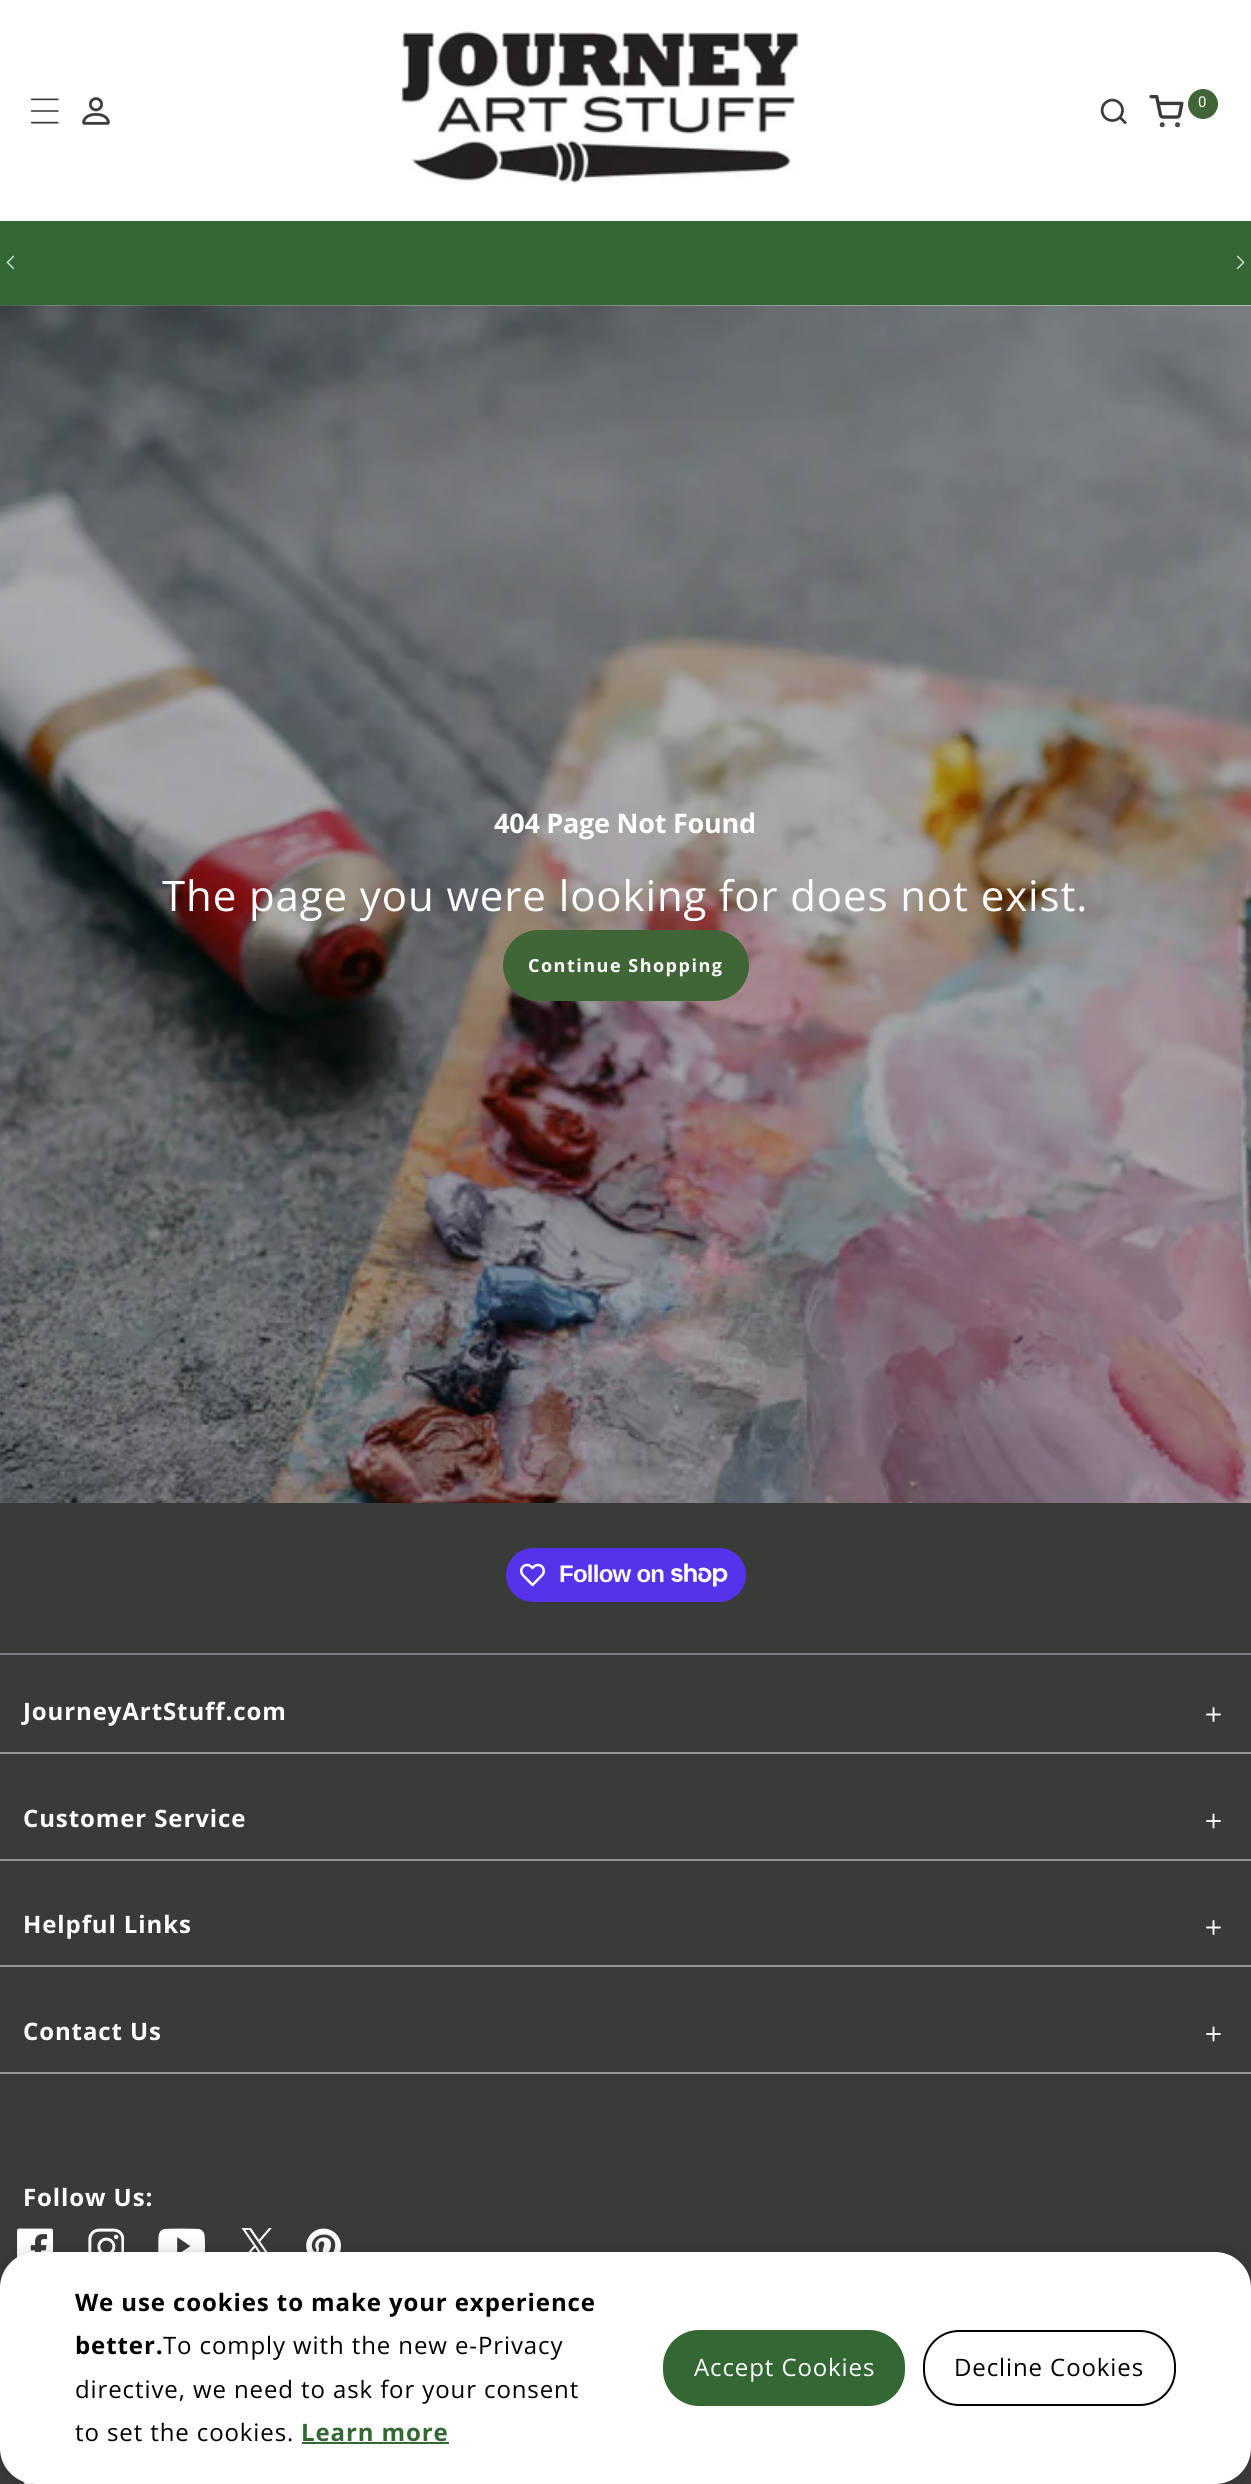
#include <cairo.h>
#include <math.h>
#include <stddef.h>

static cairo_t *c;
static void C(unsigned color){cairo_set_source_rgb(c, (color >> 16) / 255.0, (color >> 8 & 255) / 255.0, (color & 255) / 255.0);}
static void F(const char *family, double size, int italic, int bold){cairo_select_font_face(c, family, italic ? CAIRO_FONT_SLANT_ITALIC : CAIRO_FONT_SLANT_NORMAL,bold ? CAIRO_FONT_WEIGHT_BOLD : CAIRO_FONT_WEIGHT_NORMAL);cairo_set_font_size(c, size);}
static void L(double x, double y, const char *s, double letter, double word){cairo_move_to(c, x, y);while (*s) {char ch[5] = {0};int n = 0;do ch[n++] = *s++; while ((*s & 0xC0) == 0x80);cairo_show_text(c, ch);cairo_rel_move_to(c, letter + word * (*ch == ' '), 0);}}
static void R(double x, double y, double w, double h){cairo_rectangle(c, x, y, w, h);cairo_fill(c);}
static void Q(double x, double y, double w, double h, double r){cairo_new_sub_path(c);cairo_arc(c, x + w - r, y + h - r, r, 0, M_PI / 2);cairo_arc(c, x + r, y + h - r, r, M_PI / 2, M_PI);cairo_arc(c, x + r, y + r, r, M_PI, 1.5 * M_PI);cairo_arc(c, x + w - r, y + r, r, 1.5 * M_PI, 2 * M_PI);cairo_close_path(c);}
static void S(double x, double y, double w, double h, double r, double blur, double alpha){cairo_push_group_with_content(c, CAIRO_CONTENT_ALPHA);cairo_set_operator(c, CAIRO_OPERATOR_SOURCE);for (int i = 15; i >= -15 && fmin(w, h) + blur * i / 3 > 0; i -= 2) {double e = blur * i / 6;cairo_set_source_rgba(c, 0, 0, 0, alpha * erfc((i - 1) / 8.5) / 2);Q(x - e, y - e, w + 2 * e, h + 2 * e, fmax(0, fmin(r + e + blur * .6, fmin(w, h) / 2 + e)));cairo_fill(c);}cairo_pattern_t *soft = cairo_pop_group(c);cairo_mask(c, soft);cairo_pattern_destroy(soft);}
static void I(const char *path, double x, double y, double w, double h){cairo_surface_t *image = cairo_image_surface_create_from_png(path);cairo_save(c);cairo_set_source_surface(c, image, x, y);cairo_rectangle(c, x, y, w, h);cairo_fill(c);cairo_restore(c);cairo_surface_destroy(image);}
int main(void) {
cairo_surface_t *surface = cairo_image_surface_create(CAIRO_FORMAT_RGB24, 1251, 2484);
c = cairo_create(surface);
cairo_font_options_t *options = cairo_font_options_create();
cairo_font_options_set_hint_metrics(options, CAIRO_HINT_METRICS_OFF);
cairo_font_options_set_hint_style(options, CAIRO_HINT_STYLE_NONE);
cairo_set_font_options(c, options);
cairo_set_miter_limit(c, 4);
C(0xffffff);
cairo_paint(c);
I("1.png",30,98,29,26);
I("2.png",82,97,28,28);
I("3.png",401,29,398,155);
I("4.png",1100,98,27,26);
I("5.png",1149,94,35,34);
C(0x406537);
cairo_arc(c,1203,104,15,0,2 * M_PI);
cairo_fill(c);
F("Roboto",15,0,0);
C(0xfff7f7);
L(1198,107,"0",.9,0);
C(0x336733);
R(0,221,1251,84);
I("6.png",6,255,9,15);
I("7.png",1236,255,9,15);
I("8.png",0,305,1251,1198);
F("Open Sans",27,0,1);
C(0xffffff);
L(494,833,"404 Page Not Found",-.25,0);
F("Open Sans",42,0,0);
L(162,911,"The page you were looking for does not exist.",.9,0);
C(0x406537);
Q(504,931,244,69,34.5);
cairo_fill_preserve(c);
cairo_stroke(c);
F("Open Sans",18,0,1);
C(0xffffff);
L(528,972,"Continue Shopping",1.5,0);
C(0x393b39);
R(0,1503,1251,981);
C(0x5433eb);
Q(506,1548,240,54,27);
cairo_fill(c);
I("9.png",520,1563,25,24);
F("Liberation Sans",24,0,1);
C(0xffffff);
L(559,1582,"Follow on",-.75,0);
I("10.png",671,1563,57,24);
C(0x7e7e83);
R(0,1653,1251,2);
C(0x949494);
R(0,1752,1251,2);
F("Open Sans",24,0,1);
C(0xffffff);
L(23,1720,"JourneyArtStuff.com",.9,0);
I("11.png",1206,1707,15,15);
C(0x949494);
R(0,1859,1251,2);
C(0xffffff);
L(23,1827,"Customer Service",.9,0);
I("12.png",1206,1813,15,16);
C(0x949494);
R(0,1965,1251,2);
C(0xffffff);
L(23,1933,"Helpful Links",.9,0);
I("11.png",1206,1920,15,15);
C(0x949494);
R(0,2072,1251,2);
C(0xffffff);
L(23,2040,"Contact Us",.9,0);
I("12.png",1206,2026,15,16);
L(23,2206,"Follow Us:",.9,0);
I("13.png",17,2228,36,30);
I("14.png",88,2228,36,24);
I("15.png",158,2228,47,24);
I("16.png",241,2228,31,24);
I("17.png",306,2228,35,24);
I("18.png",23,2481,13,3);
C(0x000000);
S(0,2252,1251,232,36,7.5,.2);
C(0xffffff);
Q(0,2252,1251,232,36);
cairo_fill(c);
C(0x000000);
L(75,2311,"We use cookies to make your experience",.9,0);
L(75,2354,"better.",.9,0);
F("Open Sans",24,0,0);
L(163,2354,"To comply with the new e-Privacy",.9,0);
L(75,2398,"directive, we need to ask for your consent",.9,0);
L(75,2441,"to set the cookies.",.9,0);
F("Open Sans",24,0,1);
C(0x336733);
L(301,2441,"Learn more",.9,0);
R(302,2442,147,2);
Q(663,2330,242,76,36);
cairo_fill(c);
F("Open Sans",24,0,0);
C(0xffffff);
L(694,2376,"Accept Cookies",.9,0);
Q(924,2331,251,74,35);
C(0x000000);
cairo_stroke(c);
L(954,2376,"Decline Cookies",.9,0);
cairo_surface_write_to_png(surface, "o.png");
cairo_font_options_destroy(options);
cairo_destroy(c);
cairo_surface_destroy(surface);
return 0;
}
